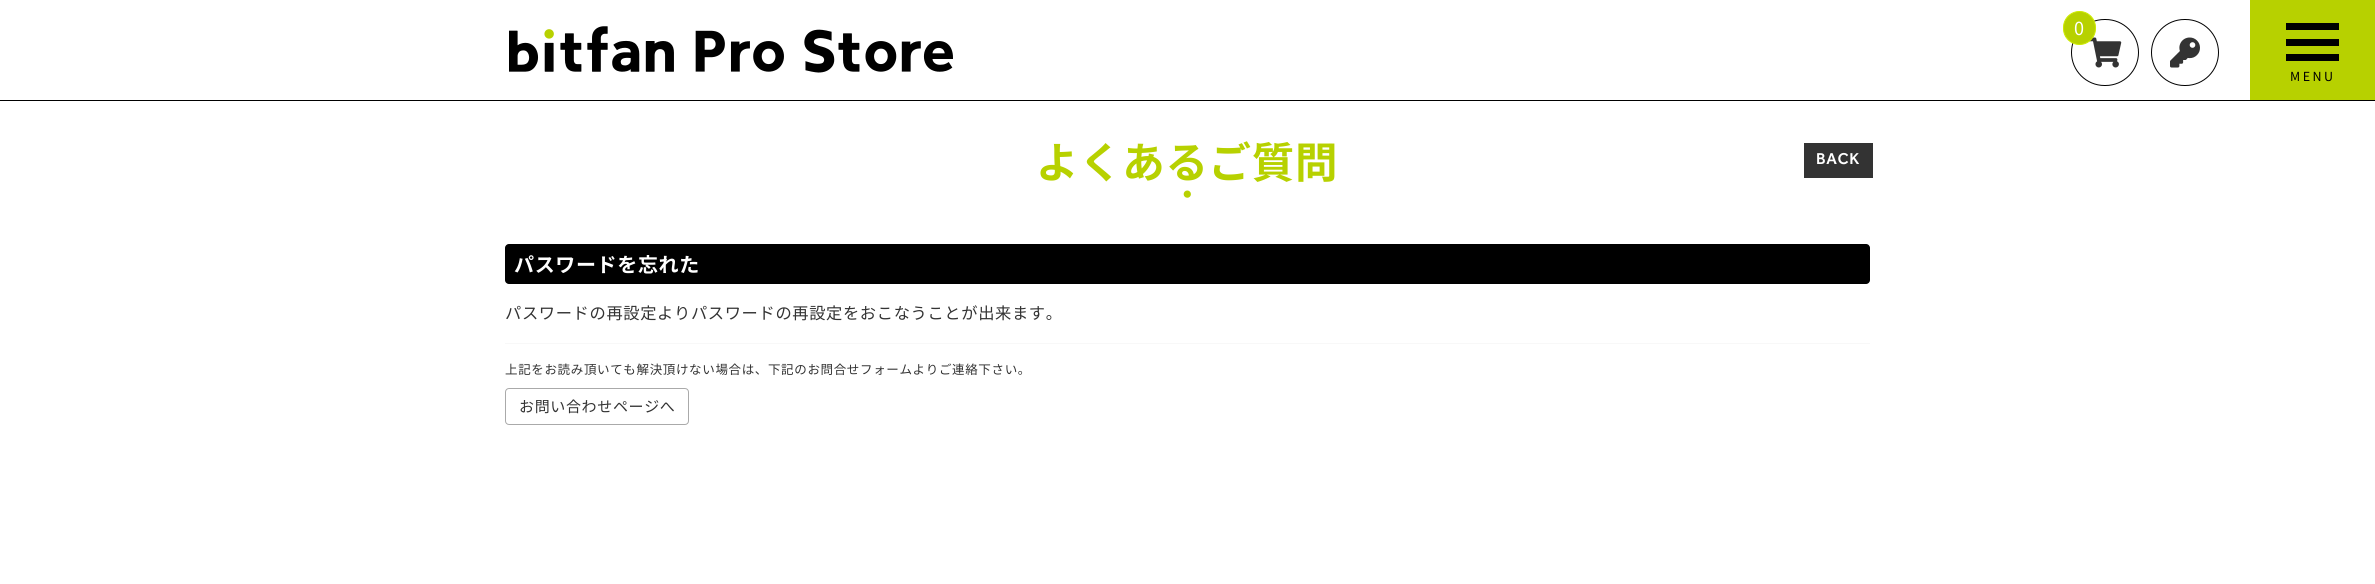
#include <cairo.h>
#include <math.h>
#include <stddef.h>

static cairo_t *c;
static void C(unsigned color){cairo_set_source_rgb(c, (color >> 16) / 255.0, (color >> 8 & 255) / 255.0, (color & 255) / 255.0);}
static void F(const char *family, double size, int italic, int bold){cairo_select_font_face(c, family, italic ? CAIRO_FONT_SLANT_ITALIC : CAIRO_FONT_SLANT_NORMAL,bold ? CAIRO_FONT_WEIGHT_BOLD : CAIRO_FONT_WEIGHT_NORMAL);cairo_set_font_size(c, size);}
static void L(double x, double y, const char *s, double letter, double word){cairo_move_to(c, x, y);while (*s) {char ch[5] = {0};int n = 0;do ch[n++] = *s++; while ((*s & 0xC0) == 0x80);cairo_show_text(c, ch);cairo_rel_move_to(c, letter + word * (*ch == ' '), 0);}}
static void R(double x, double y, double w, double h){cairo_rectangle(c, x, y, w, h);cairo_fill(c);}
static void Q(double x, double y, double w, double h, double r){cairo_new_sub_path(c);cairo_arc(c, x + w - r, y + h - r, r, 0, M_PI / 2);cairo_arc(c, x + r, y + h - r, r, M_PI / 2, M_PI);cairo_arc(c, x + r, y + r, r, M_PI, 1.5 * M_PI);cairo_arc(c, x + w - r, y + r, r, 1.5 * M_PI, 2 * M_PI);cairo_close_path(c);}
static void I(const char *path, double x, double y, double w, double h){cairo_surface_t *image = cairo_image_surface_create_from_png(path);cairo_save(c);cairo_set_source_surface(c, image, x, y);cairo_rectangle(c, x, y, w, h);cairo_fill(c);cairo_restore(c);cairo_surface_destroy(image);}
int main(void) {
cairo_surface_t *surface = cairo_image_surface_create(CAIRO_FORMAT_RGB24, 2375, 584);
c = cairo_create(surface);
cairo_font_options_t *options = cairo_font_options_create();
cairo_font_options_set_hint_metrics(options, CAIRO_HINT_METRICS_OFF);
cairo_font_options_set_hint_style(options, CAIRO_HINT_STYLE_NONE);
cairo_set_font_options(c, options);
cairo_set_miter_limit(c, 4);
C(0xffffff);
cairo_paint(c);
C(0x000000);
R(0,100,2375,1);
I("1.png",509,26,444,47);
Q(2071.5,19.5,67,66,33);
cairo_set_line_width(c,1);
cairo_stroke(c);
I("2.png",2089,37,33,31);
C(0xb7d100);
Q(2063.5,11.5,32,33,16);
cairo_fill_preserve(c);
C(0xcdeb00);
cairo_stroke(c);
F("Noto Sans JP",18,0,0);
C(0xffffff);
L(2074,35,"0",.65,0);
Q(2151.5,19.5,67,66,33);
C(0x000000);
cairo_stroke(c);
I("3.png",2170,37,30,31);
C(0xb7d100);
R(2250,0,125,100);
C(0x000000);
R(2286,39,53,7);
R(2286,23,53,7);
R(2286,54,53,7);
F("Noto Sans JP",12.5,0,0);
L(2290,81,"MENU",2.5,0);
F("Noto Sans JP",42.5,0,1);
C(0xb7d100);
L(1036,178,"よくあるご質問",.65,0);
I("4.png",1183,190,8,8);
C(0x333333);
R(1804,143,69,35);
F("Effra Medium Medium",16.25,0,0);
C(0xffffff);
L(1816,164,"BACK",.65,0);
C(0x000000);
Q(505,244,1365,40,4);
cairo_fill(c);
F("Noto Sans JP",20,0,1);
C(0xffffff);
L(514,272,"パスワードを忘れた",.65,0);
F("Noto Sans JP",16.25,0,0);
C(0x333333);
L(505,319,"パスワードの再設定よりパスワードの再設定をおこなうことが出来ます。",.65,0);
C(0xf8f8f8);
R(505,343,1365,1);
F("Noto Sans JP",12.5,0,0);
C(0x333333);
L(505,374,"上記をお読み頂いても解決頂けない場合は、下記のお問合せフォームよりご連絡下さい。",.65,0);
Q(505.5,388.5,183,36,3.5);
C(0xaaaaaa);
cairo_stroke(c);
F("Noto Sans JP",15,0,0);
C(0x333333);
L(519,412,"お問い合わせページへ",.65,0);
cairo_surface_write_to_png(surface, "o.png");
cairo_font_options_destroy(options);
cairo_destroy(c);
cairo_surface_destroy(surface);
return 0;
}
